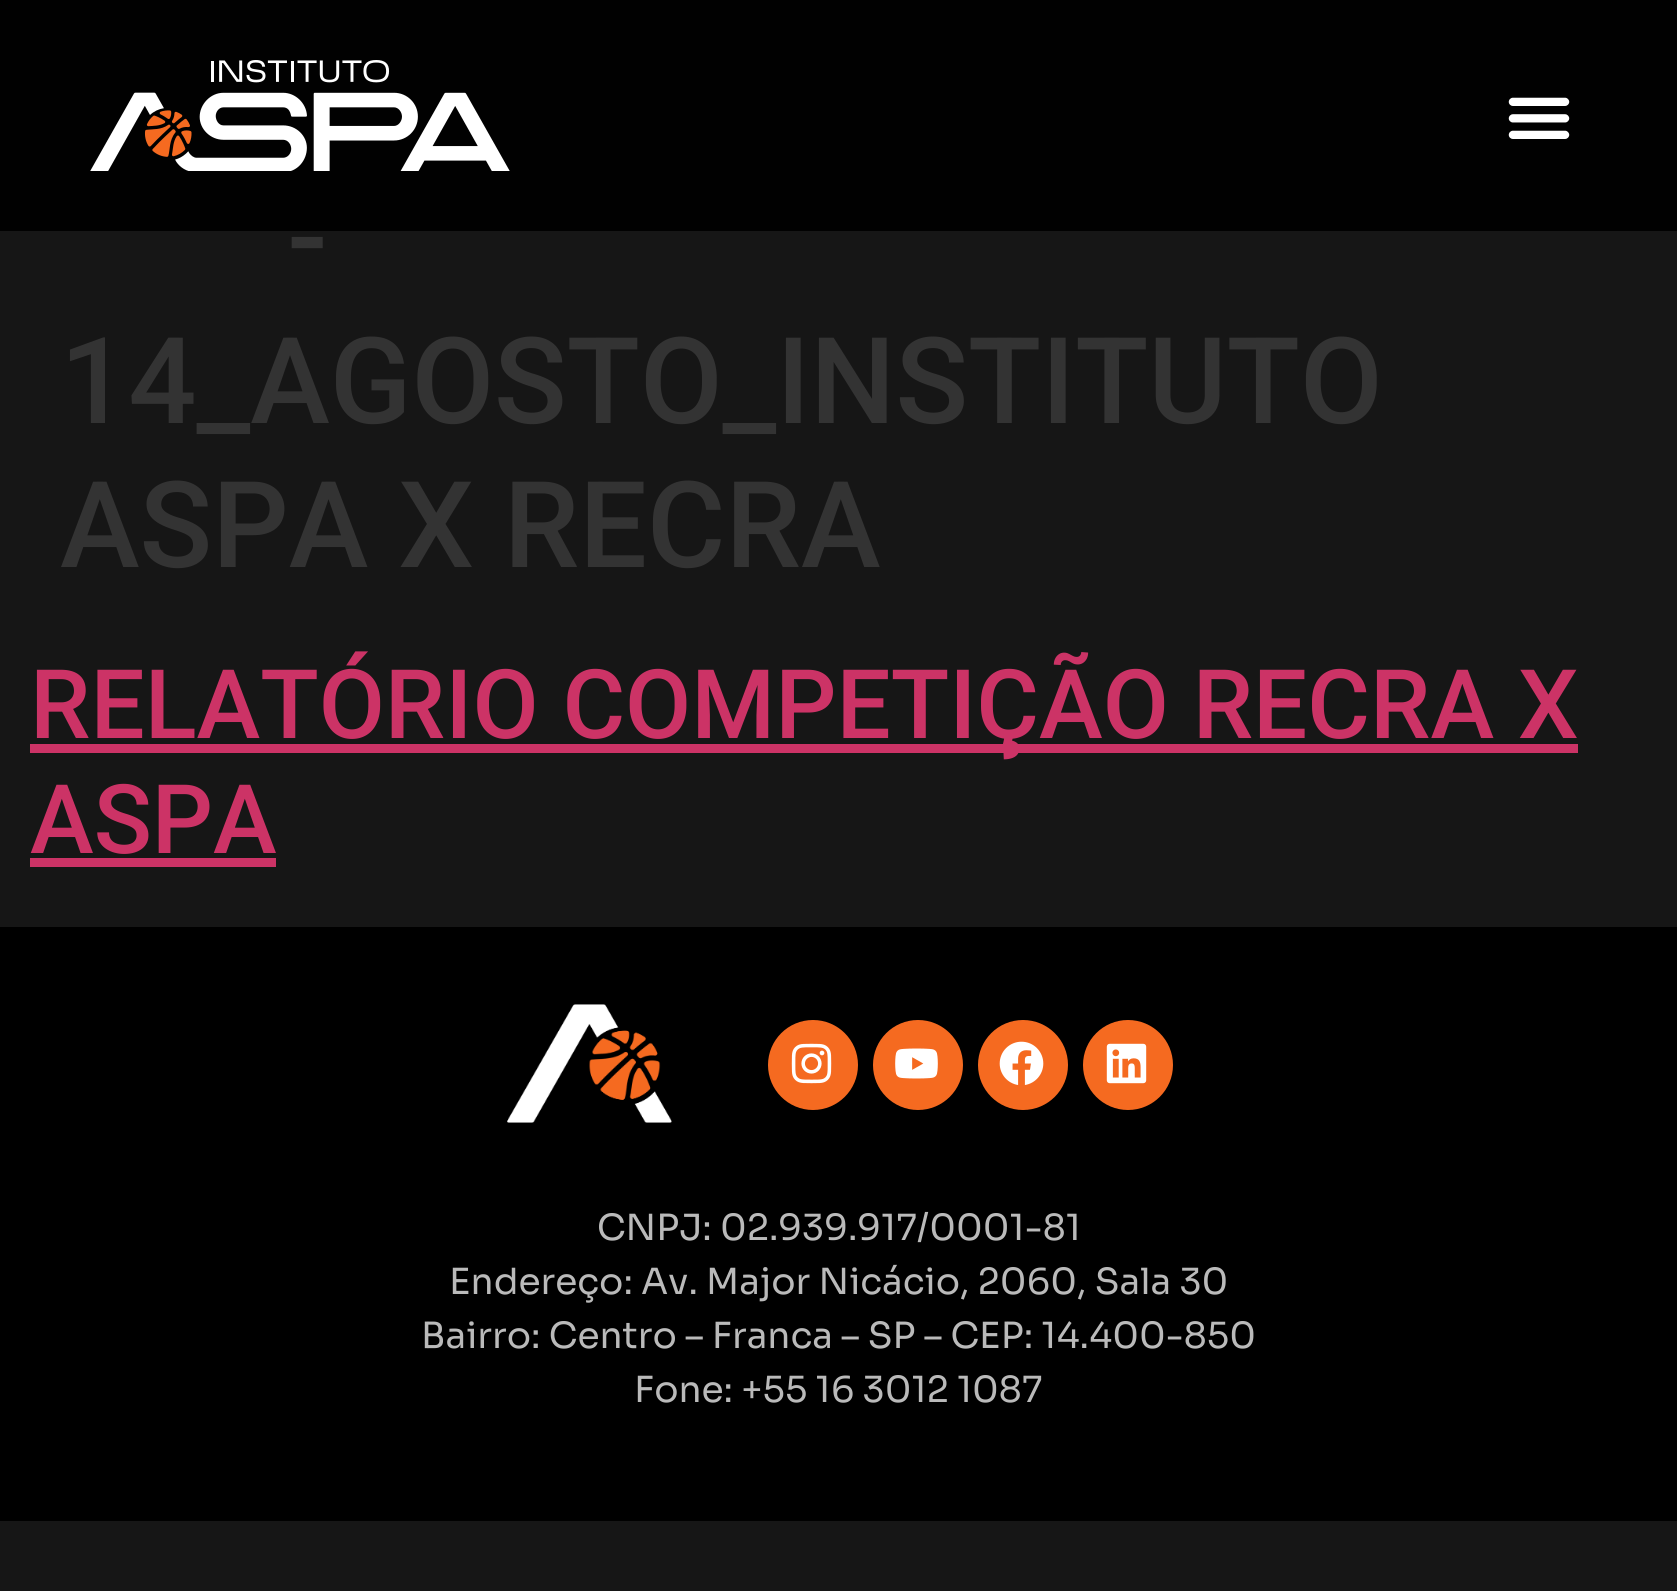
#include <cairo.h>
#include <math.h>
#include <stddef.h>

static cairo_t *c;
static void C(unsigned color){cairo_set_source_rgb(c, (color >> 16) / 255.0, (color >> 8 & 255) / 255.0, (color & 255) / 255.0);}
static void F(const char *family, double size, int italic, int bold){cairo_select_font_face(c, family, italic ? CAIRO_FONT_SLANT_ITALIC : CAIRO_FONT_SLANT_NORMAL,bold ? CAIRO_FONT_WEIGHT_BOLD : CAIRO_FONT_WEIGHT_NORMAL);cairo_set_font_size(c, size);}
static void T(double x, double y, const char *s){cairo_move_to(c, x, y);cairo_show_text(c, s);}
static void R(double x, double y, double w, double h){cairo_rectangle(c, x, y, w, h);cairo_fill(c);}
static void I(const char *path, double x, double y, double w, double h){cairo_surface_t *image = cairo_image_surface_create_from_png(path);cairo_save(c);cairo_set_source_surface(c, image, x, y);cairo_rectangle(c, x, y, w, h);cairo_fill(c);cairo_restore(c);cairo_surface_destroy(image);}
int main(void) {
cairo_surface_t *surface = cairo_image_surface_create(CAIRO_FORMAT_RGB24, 1677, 1591);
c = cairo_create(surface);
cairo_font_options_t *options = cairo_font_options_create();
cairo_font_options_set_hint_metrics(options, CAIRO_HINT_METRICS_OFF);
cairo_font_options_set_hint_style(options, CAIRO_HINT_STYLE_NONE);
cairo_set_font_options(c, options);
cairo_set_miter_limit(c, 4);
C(0x161616);
cairo_paint(c);
cairo_set_source_rgba(c,0,0,0,0.93);
R(0,0,1677,231);
I("1.png",90,60,420,111);
I("2.png",1508,97,62,42);
F("Roboto Medium",120,0,0);
C(0x333333);
T(287,279,"-");
T(60,423,"14_AGOSTO_INSTITUTO");
T(60,567,"ASPA X RECRA");
C(0xcc3366);
R(30,744,1548,9);
F("Roboto Medium",96,0,0);
T(30,738,"RELATÓRIO COMPETIÇÃO RECRA X");
T(30,853,"ASPA");
R(30,858,246,9);
C(0x000000);
R(0,927,1677,594);
I("3.png",507,1004,165,119);
C(0xf56a20);
cairo_arc(c,813,1065,45,0,2 * M_PI);
cairo_fill(c);
I("4.png",791,1043,41,41);
cairo_arc(c,918,1065,45,0,2 * M_PI);
cairo_fill(c);
I("5.png",895,1048,43,31);
cairo_arc(c,1023,1065,45,0,2 * M_PI);
cairo_fill(c);
I("6.png",999,1041,45,44);
cairo_arc(c,1128,1065,45,0,2 * M_PI);
cairo_fill(c);
I("7.png",1106,1043,41,41);
F("Sora",36,0,0);
C(0xbababa);
T(597,1240,"CNPJ: 02.939.917/0001-81");
T(449,1294,"Endereço: Av. Major Nicácio, 2060, Sala 30");
T(421,1348,"Bairro: Centro – Franca – SP – CEP: 14.400-850");
T(634,1402,"Fone: +55 16 3012 1087");
cairo_surface_write_to_png(surface, "o.png");
cairo_font_options_destroy(options);
cairo_destroy(c);
cairo_surface_destroy(surface);
return 0;
}
